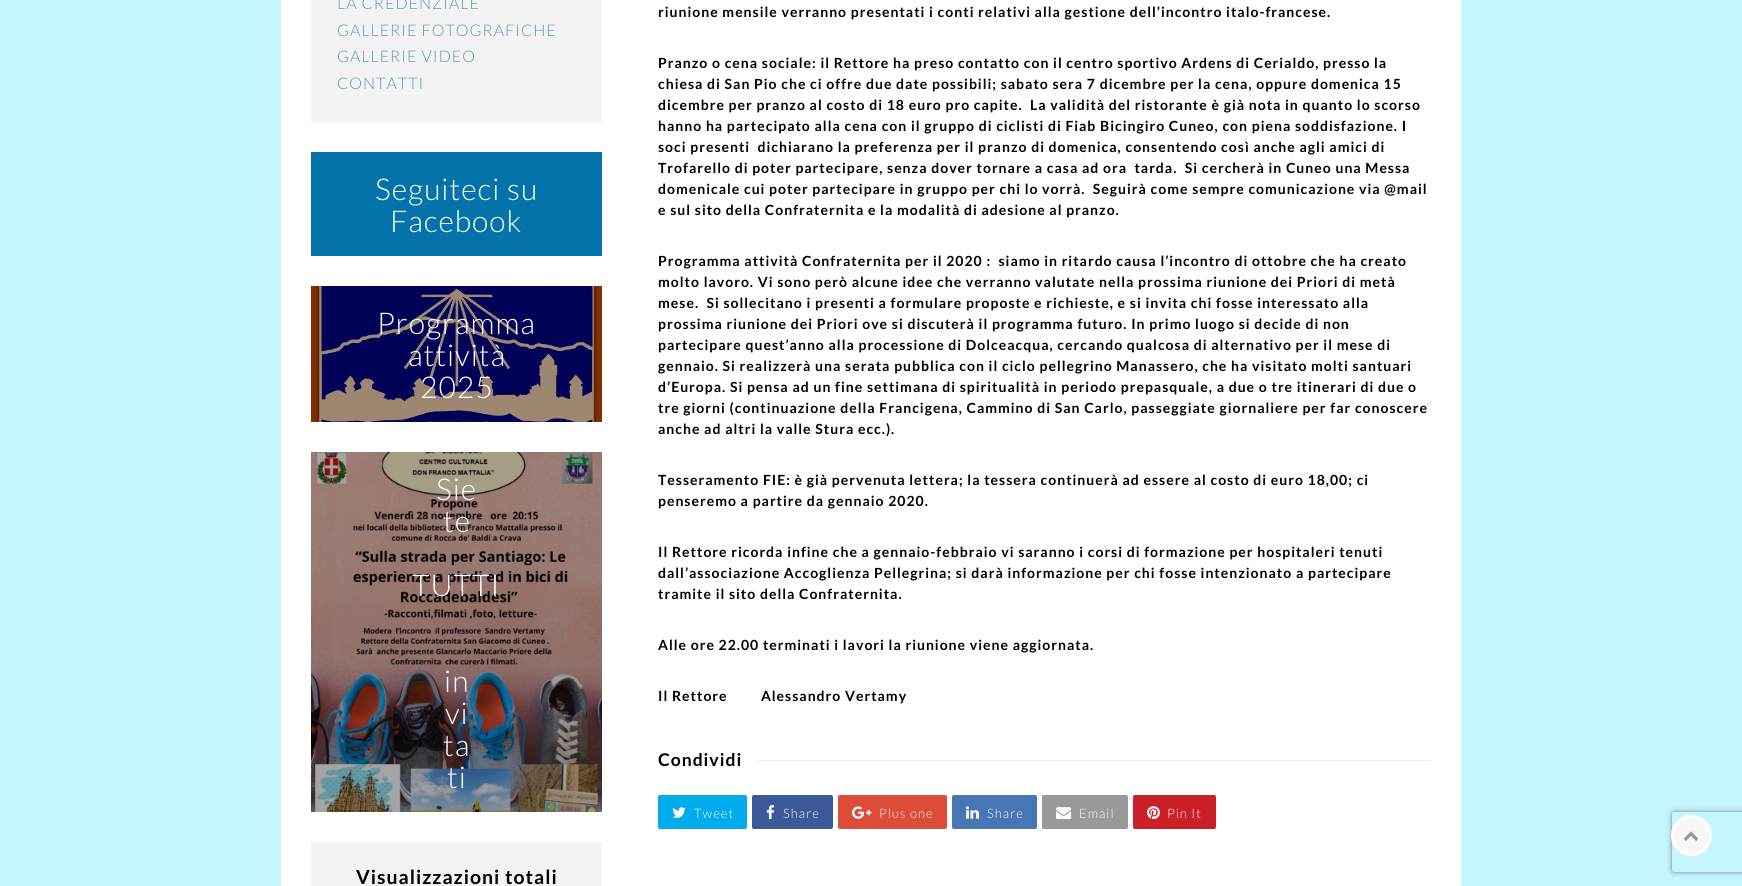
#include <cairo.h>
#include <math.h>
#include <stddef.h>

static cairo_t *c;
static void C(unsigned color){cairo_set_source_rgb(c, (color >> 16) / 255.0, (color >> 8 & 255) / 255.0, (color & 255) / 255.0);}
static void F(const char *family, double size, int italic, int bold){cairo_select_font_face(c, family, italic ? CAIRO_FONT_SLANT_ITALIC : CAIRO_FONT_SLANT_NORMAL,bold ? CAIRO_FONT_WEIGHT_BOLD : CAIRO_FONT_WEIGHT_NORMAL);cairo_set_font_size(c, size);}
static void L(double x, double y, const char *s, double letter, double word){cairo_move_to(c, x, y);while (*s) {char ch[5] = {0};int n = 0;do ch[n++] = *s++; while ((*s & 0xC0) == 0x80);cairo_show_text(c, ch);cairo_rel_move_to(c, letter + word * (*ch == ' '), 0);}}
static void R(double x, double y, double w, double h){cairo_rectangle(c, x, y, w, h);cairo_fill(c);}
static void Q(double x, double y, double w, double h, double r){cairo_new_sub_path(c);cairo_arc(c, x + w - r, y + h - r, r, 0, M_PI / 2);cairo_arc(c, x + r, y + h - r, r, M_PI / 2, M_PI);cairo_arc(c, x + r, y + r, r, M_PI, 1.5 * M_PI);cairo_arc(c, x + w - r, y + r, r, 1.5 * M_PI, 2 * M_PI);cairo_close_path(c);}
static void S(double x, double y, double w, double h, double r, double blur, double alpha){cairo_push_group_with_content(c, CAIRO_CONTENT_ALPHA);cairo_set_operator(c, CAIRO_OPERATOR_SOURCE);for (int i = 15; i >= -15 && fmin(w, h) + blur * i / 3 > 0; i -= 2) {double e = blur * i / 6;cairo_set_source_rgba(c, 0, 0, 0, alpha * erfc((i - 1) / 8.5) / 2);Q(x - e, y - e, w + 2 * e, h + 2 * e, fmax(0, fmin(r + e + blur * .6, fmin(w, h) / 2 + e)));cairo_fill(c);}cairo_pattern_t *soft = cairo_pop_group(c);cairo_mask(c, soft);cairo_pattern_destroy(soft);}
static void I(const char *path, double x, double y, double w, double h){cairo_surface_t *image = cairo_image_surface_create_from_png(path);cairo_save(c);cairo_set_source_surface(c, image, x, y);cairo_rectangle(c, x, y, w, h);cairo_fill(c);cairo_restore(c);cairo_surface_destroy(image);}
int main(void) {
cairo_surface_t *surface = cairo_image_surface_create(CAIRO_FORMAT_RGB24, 1742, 886);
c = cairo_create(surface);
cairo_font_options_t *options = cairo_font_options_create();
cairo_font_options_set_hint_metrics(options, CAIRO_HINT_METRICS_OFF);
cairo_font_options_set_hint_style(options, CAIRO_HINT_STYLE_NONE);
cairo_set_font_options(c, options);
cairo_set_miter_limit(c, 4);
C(0xc5f5fe);
cairo_paint(c);
C(0xffffff);
R(281,0,1180,886);
C(0xf3f3f3);
R(311,0,291,122);
F("Lato Light",16,0,0);
C(0x559cae);
L(337,9,"LA CREDENZIALE",1,0);
L(337,36,"GALLERIE FOTOGRAFICHE",1,0);
L(337,62,"GALLERIE VIDEO",1,0);
L(337,89,"CONTATTI",1,0);
C(0x0473aa);
R(311,152,291,104);
F("Lato Light",30,0,0);
C(0xffffff);
L(375,200,"Seguiteci su",1,0);
L(390,232,"Facebook",1,0);
I("1.png",311,286,291,136);
L(377,334,"Programma",1,0);
L(408,366,"attività",1,0);
L(420,398,"2025",1,0);
I("2.png",311,452,291,360);
L(436,500,"Sie",1,0);
L(443,532,"te",1,0);
L(412,596,"TUTTI",1,0);
L(444,692,"in",1,0);
L(445,724,"vi",1,0);
L(443,756,"ta",1,0);
L(447,788,"ti",1,0);
C(0xf3f3f3);
R(311,842,291,44);
F("Lato",19.4,0,1);
C(0x000000);
L(356,884,"Visualizzazioni totali",1,0);
F("Lato",14,0,1);
L(658,17,"riunione mensile verranno presentati i conti relativi alla gestione dell’incontro italo-francese.",1,0);
L(658,68,"Pranzo o cena sociale: il Rettore ha preso contatto con il centro sportivo Ardens di Cerialdo, presso la",1,0);
L(658,89,"chiesa di San Pio che ci offre due date possibili; sabato sera 7 dicembre per la cena, oppure domenica 15",1,0);
L(658,110,"dicembre per pranzo al costo di 18 euro pro capite.  La validità del ristorante è già nota in quanto lo scorso",1,0);
L(658,131,"hanno ha partecipato alla cena con il gruppo di ciclisti di Fiab Bicingiro Cuneo, con piena soddisfazione. I",1,0);
L(658,152,"soci presenti  dichiarano la preferenza per il pranzo di domenica, consentendo così anche agli amici di",1,0);
L(658,173,"Trofarello di poter partecipare, senza dover tornare a casa ad ora  tarda.  Si cercherà in Cuneo una Messa",1,0);
L(658,194,"domenicale cui poter partecipare in gruppo per chi lo vorrà.  Seguirà come sempre comunicazione via @mail",1,0);
L(658,215,"e sul sito della Confraternita e la modalità di adesione al pranzo.",1,0);
L(658,266,"Programma attività Confraternita per il 2020 :  siamo in ritardo causa l’incontro di ottobre che ha creato",1,0);
L(658,287,"molto lavoro. Vi sono però alcune idee che verranno valutate nella prossima riunione dei Priori di metà",1,0);
L(658,308,"mese.  Si sollecitano i presenti a formulare proposte e richieste, e si invita chi fosse interessato alla",1,0);
L(658,329,"prossima riunione dei Priori ove si discuterà il programma futuro. In primo luogo si decide di non",1,0);
L(658,350,"partecipare quest’anno alla processione di Dolceacqua, cercando qualcosa di alternativo per il mese di",1,0);
L(658,371,"gennaio. Si realizzerà una serata pubblica con il ciclo pellegrino Manassero, che ha visitato molti santuari",1,0);
L(658,392,"d’Europa. Si pensa ad un fine settimana di spiritualità in periodo prepasquale, a due o tre itinerari di due o",1,0);
L(658,413,"tre giorni (continuazione della Francigena, Cammino di San Carlo, passeggiate giornaliere per far conoscere",1,0);
L(658,434,"anche ad altri la valle Stura ecc.).",1,0);
L(658,485,"Tesseramento FIE: è già pervenuta lettera; la tessera continuerà ad essere al costo di euro 18,00; ci",1,0);
L(658,506,"penseremo a partire da gennaio 2020.",1,0);
L(658,557,"Il Rettore ricorda infine che a gennaio-febbraio vi saranno i corsi di formazione per hospitaleri tenuti",1,0);
L(658,578,"dall’associazione Accoglienza Pellegrina; si darà informazione per chi fosse intenzionato a partecipare",1,0);
L(658,599,"tramite il sito della Confraternita.",1,0);
L(658,650,"Alle ore 22.00 terminati i lavori la riunione viene aggiornata.",1,0);
L(658,701,"Il Rettore         Alessandro Vertamy",1,0);
F("Lato",17.5,0,1);
L(658,766,"Condividi",1,0);
C(0xeeeeee);
R(757,760,674,1);
C(0x00aced);
Q(658,795,89,34,2);
cairo_fill(c);
I("3.png",672,807,14,11);
F("Lato Light",13,0,0);
C(0xffffff);
L(694,818,"Tweet",1,0);
C(0x3b5998);
Q(752,795,81,34,2);
cairo_fill(c);
I("4.png",766,805,9,15);
C(0xffffff);
L(783,818,"Share",1,0);
C(0xdd4b39);
Q(838,795,109,34,2);
cairo_fill(c);
I("5.png",852,806,20,13);
C(0xffffff);
L(879,818,"Plus one",1,0);
C(0x4875b4);
Q(952,795,85,34,2);
cairo_fill(c);
I("6.png",966,806,13,13);
C(0xffffff);
L(987,818,"Share",1,0);
C(0x999999);
Q(1042,795,86,34,2);
cairo_fill(c);
I("7.png",1056,807,16,13);
C(0xffffff);
L(1079,818,"Email",1,0);
C(0xcb2027);
Q(1133,795,83,34,2);
cairo_fill(c);
I("8.png",1147,806,13,14);
C(0xffffff);
L(1167,818,"Pin It",1,0);
cairo_save(c);
cairo_set_fill_rule(c,CAIRO_FILL_RULE_EVEN_ODD);
cairo_new_path(c);
cairo_move_to(c,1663,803);
cairo_line_to(c,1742,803);
cairo_line_to(c,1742,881);
cairo_line_to(c,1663,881);
cairo_close_path(c);
cairo_move_to(c,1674,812);
cairo_line_to(c,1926,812);
cairo_curve_to(c,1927,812,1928,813,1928,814);
cairo_line_to(c,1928,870);
cairo_curve_to(c,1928,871,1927,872,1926,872);
cairo_line_to(c,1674,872);
cairo_curve_to(c,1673,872,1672,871,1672,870);
cairo_line_to(c,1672,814);
cairo_curve_to(c,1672,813,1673,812,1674,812);
cairo_close_path(c);
cairo_clip(c);
C(0x808080);
S(1672,812,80,60,2,2.5,1);
cairo_restore(c);
C(0xf7f7f7);
cairo_arc(c,1691.5,835.5,19,0,2 * M_PI);
cairo_fill_preserve(c);
C(0xffffff);
cairo_set_line_width(c,3);
cairo_stroke(c);
I("9.png",1683,831,16,10);
cairo_surface_write_to_png(surface, "o.png");
cairo_font_options_destroy(options);
cairo_destroy(c);
cairo_surface_destroy(surface);
return 0;
}
